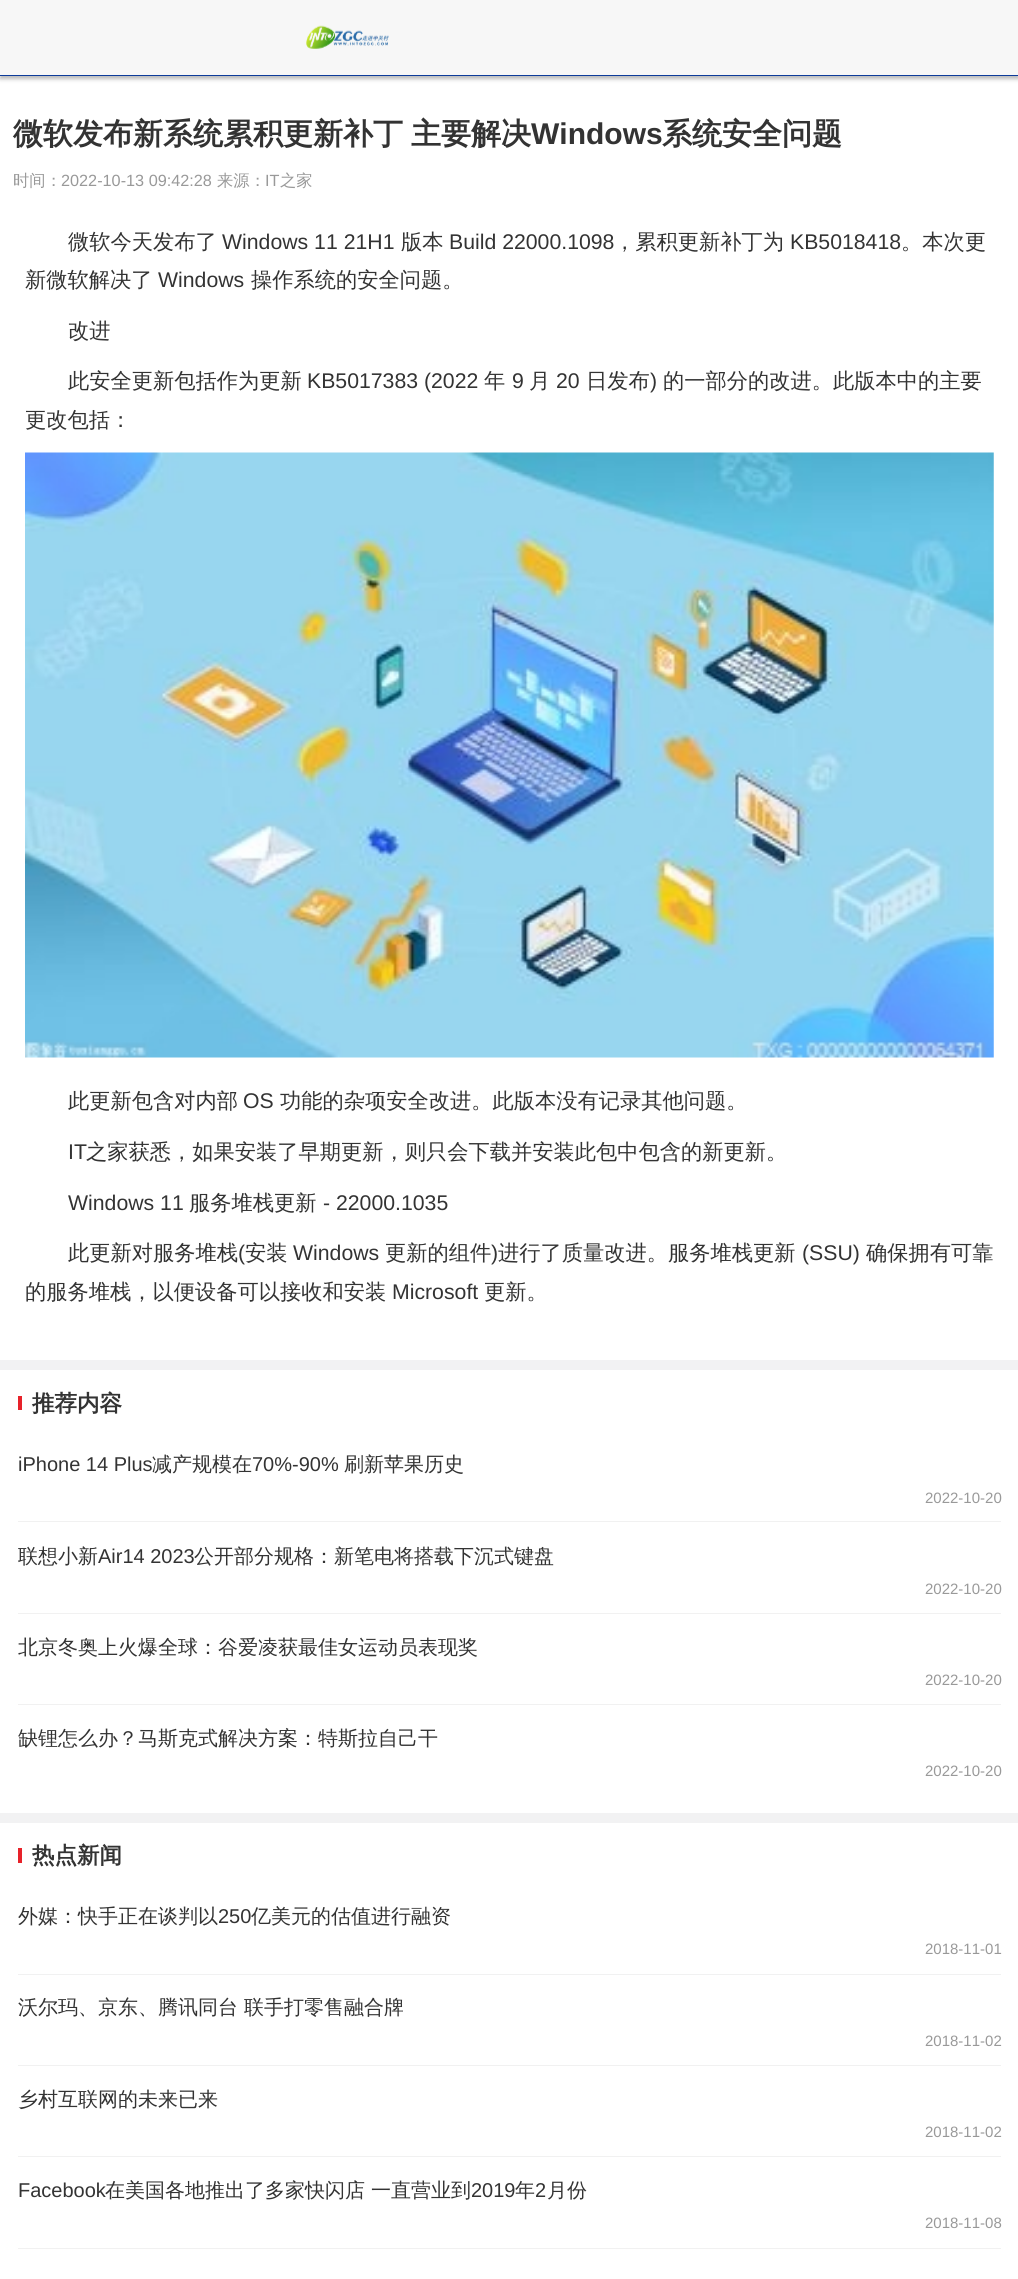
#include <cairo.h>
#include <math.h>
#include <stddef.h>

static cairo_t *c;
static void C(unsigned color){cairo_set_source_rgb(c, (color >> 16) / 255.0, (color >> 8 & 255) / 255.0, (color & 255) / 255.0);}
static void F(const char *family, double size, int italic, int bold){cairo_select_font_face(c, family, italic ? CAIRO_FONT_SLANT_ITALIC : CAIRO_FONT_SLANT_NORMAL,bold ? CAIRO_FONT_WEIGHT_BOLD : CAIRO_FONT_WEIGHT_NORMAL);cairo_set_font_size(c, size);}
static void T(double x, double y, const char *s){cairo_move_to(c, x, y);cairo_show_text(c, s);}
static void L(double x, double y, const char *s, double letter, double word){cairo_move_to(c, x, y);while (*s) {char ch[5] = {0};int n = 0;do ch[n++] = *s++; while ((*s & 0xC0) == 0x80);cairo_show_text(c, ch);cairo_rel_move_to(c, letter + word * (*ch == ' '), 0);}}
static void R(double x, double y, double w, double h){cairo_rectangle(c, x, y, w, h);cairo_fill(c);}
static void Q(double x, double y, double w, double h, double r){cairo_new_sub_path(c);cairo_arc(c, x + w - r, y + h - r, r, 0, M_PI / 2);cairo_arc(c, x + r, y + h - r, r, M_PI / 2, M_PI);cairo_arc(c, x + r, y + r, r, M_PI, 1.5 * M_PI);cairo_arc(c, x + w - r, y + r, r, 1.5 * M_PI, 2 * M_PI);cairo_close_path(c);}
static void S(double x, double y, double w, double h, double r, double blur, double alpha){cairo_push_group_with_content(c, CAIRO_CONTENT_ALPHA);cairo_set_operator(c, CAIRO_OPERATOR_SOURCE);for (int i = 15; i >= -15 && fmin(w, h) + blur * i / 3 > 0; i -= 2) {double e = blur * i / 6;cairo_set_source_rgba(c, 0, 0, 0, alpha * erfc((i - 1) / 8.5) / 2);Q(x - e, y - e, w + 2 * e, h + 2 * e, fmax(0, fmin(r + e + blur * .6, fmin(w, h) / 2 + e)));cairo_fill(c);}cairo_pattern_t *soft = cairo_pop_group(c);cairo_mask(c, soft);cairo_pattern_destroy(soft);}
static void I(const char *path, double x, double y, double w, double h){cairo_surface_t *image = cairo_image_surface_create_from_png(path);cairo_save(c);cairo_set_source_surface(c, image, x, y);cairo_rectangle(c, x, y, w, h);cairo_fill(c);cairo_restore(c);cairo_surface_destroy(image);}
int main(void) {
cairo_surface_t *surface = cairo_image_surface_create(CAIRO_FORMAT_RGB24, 1018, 2279);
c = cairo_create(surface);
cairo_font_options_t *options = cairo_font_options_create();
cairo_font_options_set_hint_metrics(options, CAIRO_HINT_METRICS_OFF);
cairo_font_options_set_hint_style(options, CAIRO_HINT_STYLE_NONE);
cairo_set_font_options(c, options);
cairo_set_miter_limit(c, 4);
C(0xf2f2f3);
cairo_paint(c);
C(0xffffff);
R(0,76,1018,1284);
C(0xbababa);
S(0,3,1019,76,0,2,1);
C(0x0d3b9a);
R(0,75,1018,1);
C(0xf7f7f7);
R(0,0,1018,75);
I("1.png",306,25,83,24);
F("WenQuanYi Zen Hei",30,0,1);
C(0x333333);
L(13,144,"微软发布新系统累积更新补丁 主要解决",0,-1);
F("Liberation Sans",30,0,1);
T(531,144,"Windows");
F("WenQuanYi Zen Hei",30,0,1);
T(662,144,"系统安全问题");
F("WenQuanYi Zen Hei Medium",16.25,0,0);
C(0x999999);
T(13,186,"时间：");
F("Liberation Sans",16.25,0,0);
T(61,186,"2022-10-13 09:42:28");
F("WenQuanYi Zen Hei Medium",16.25,0,0);
T(217,186,"来源：");
F("Liberation Sans",16.25,0,0);
T(265,186,"IT");
F("WenQuanYi Zen Hei Medium",16.25,0,0);
T(280,186,"之家");
F("WenQuanYi Zen Hei Medium",21.25,0,0);
C(0x333333);
T(68,249,"微软今天发布了");
F("Liberation Sans",21.25,0,0);
T(222,249,"Windows 11 21H1");
F("WenQuanYi Zen Hei Medium",21.25,0,0);
T(401,249,"版本");
F("Liberation Sans",21.25,0,0);
T(449,249,"Build 22000.1098");
F("WenQuanYi Zen Hei Medium",21.25,0,0);
T(614,249,"，累积更新补丁为");
F("Liberation Sans",21.25,0,0);
T(790,249,"KB5018418");
F("WenQuanYi Zen Hei Medium",21.25,0,0);
T(901,249,"。本次更");
T(25,287,"新微软解决了");
F("Liberation Sans",21.25,0,0);
T(158,287,"Windows");
F("WenQuanYi Zen Hei Medium",21.25,0,0);
T(251,287,"操作系统的安全问题。");
T(68,338,"改进");
T(68,388,"此安全更新包括作为更新");
F("Liberation Sans",21.25,0,0);
T(307,388,"KB5017383 (2022");
F("WenQuanYi Zen Hei Medium",21.25,0,0);
T(484,388,"年");
F("Liberation Sans",21.25,0,0);
T(512,388,"9");
F("WenQuanYi Zen Hei Medium",21.25,0,0);
T(529,388,"月");
F("Liberation Sans",21.25,0,0);
T(556,388,"20");
F("WenQuanYi Zen Hei Medium",21.25,0,0);
T(586,388,"日发布");
F("Liberation Sans",21.25,0,0);
T(650,388,")");
F("WenQuanYi Zen Hei Medium",21.25,0,0);
T(663,388,"的一部分的改进。此版本中的主要");
T(25,427,"更改包括：");
I("2.png",25,452,969,606);
T(68,1108,"此更新包含对内部");
F("Liberation Sans",21.25,0,0);
T(243,1108,"OS");
F("WenQuanYi Zen Hei Medium",21.25,0,0);
T(280,1108,"功能的杂项安全改进。此版本没有记录其他问题。");
F("Liberation Sans",21.25,0,0);
T(68,1159,"IT");
F("WenQuanYi Zen Hei Medium",21.25,0,0);
T(86,1159,"之家获悉，如果安装了早期更新，则只会下载并安装此包中包含的新更新。");
F("Liberation Sans",21.25,0,0);
T(68,1210,"Windows 11");
F("WenQuanYi Zen Hei Medium",21.25,0,0);
T(189,1210,"服务堆栈更新");
F("Liberation Sans",21.25,0,0);
T(323,1210,"- 22000.1035");
F("WenQuanYi Zen Hei Medium",21.25,0,0);
T(68,1260,"此更新对服务堆栈");
F("Liberation Sans",21.25,0,0);
T(238,1260,"(");
F("WenQuanYi Zen Hei Medium",21.25,0,0);
T(245,1260,"安装");
F("Liberation Sans",21.25,0,0);
T(293,1260,"Windows");
F("WenQuanYi Zen Hei Medium",21.25,0,0);
T(385,1260,"更新的组件");
F("Liberation Sans",21.25,0,0);
T(491,1260,")");
F("WenQuanYi Zen Hei Medium",21.25,0,0);
T(498,1260,"进行了质量改进。服务堆栈更新");
F("Liberation Sans",21.25,0,0);
T(802,1260,"(SSU)");
F("WenQuanYi Zen Hei Medium",21.25,0,0);
T(866,1260,"确保拥有可靠");
T(25,1299,"的服务堆栈，以便设备可以接收和安装");
F("Liberation Sans",21.25,0,0);
T(392,1299,"Microsoft");
F("WenQuanYi Zen Hei Medium",21.25,0,0);
T(484,1299,"更新。");
C(0xffffff);
R(0,1370,1018,443);
C(0xe7222a);
R(18,1396,4,14);
F("WenQuanYi Zen Hei",22.5,0,1);
C(0x333333);
T(32,1411,"推荐内容");
C(0xf1f1f1);
R(18,1521,983,1);
F("Liberation Sans",20,0,0);
C(0x333333);
T(18,1471,"iPhone 14 Plus");
F("WenQuanYi Zen Hei Medium",20,0,0);
T(152,1471,"减产规模在");
F("Liberation Sans",20,0,0);
T(252,1471,"70%-90%");
F("WenQuanYi Zen Hei Medium",20,0,0);
T(344,1471,"刷新苹果历史");
F("Liberation Sans",15,0,0);
C(0x999999);
T(925,1503,"2022-10-20");
C(0xf1f1f1);
R(18,1613,983,1);
cairo_save(c);
cairo_rectangle(c,18,1538,983,37);
cairo_clip(c);
F("WenQuanYi Zen Hei Medium",20,0,0);
C(0x333333);
T(18,1563,"联想小新");
cairo_restore(c);
F("Liberation Sans",20,0,0);
C(0x333333);
T(98,1563,"Air14 2023");
F("WenQuanYi Zen Hei Medium",20,0,0);
T(194,1563,"公开部分规格：新笔电将搭载下沉式键盘");
F("Liberation Sans",15,0,0);
C(0x999999);
T(925,1594,"2022-10-20");
C(0xf1f1f1);
R(18,1704,983,1);
F("WenQuanYi Zen Hei Medium",20,0,0);
C(0x333333);
T(18,1654,"北京冬奥上火爆全球：谷爱凌获最佳女运动员表现奖");
F("Liberation Sans",15,0,0);
C(0x999999);
T(925,1685,"2022-10-20");
F("WenQuanYi Zen Hei Medium",20,0,0);
C(0x333333);
T(18,1745,"缺锂怎么办？马斯克式解决方案：特斯拉自己干");
F("Liberation Sans",15,0,0);
C(0x999999);
T(925,1776,"2022-10-20");
C(0xffffff);
R(0,1823,1018,456);
C(0xe7222a);
R(18,1848,4,15);
F("WenQuanYi Zen Hei",22.5,0,1);
C(0x333333);
T(32,1863,"热点新闻");
C(0xf1f1f1);
R(18,1974,983,1);
F("WenQuanYi Zen Hei Medium",20,0,0);
C(0x333333);
T(18,1923,"外媒：快手正在谈判以");
F("Liberation Sans",20,0,0);
T(218,1923,"250");
F("WenQuanYi Zen Hei Medium",20,0,0);
T(251,1923,"亿美元的估值进行融资");
F("Liberation Sans",15,0,0);
C(0x999999);
T(925,1954,"2018-11-01");
C(0xf1f1f1);
R(18,2065,983,1);
F("WenQuanYi Zen Hei Medium",20,0,0);
C(0x333333);
T(18,2014,"沃尔玛、京东、腾讯同台 联手打零售融合牌");
F("Liberation Sans",15,0,0);
C(0x999999);
T(925,2046,"2018-11-02");
C(0xf1f1f1);
R(18,2156,983,1);
F("WenQuanYi Zen Hei Medium",20,0,0);
C(0x333333);
T(18,2106,"乡村互联网的未来已来");
F("Liberation Sans",15,0,0);
C(0x999999);
T(925,2137,"2018-11-02");
C(0xf1f1f1);
R(18,2248,983,1);
F("Liberation Sans",20,0,0);
C(0x333333);
T(18,2197,"Facebook");
F("WenQuanYi Zen Hei Medium",20,0,0);
T(105,2197,"在美国各地推出了多家快闪店 一直营业到");
F("Liberation Sans",20,0,0);
T(471,2197,"2019");
F("WenQuanYi Zen Hei Medium",20,0,0);
T(515,2197,"年");
F("Liberation Sans",20,0,0);
T(535,2197,"2");
F("WenQuanYi Zen Hei Medium",20,0,0);
T(547,2197,"月份");
F("Liberation Sans",15,0,0);
C(0x999999);
T(925,2228,"2018-11-08");
cairo_surface_write_to_png(surface, "o.png");
cairo_font_options_destroy(options);
cairo_destroy(c);
cairo_surface_destroy(surface);
return 0;
}
